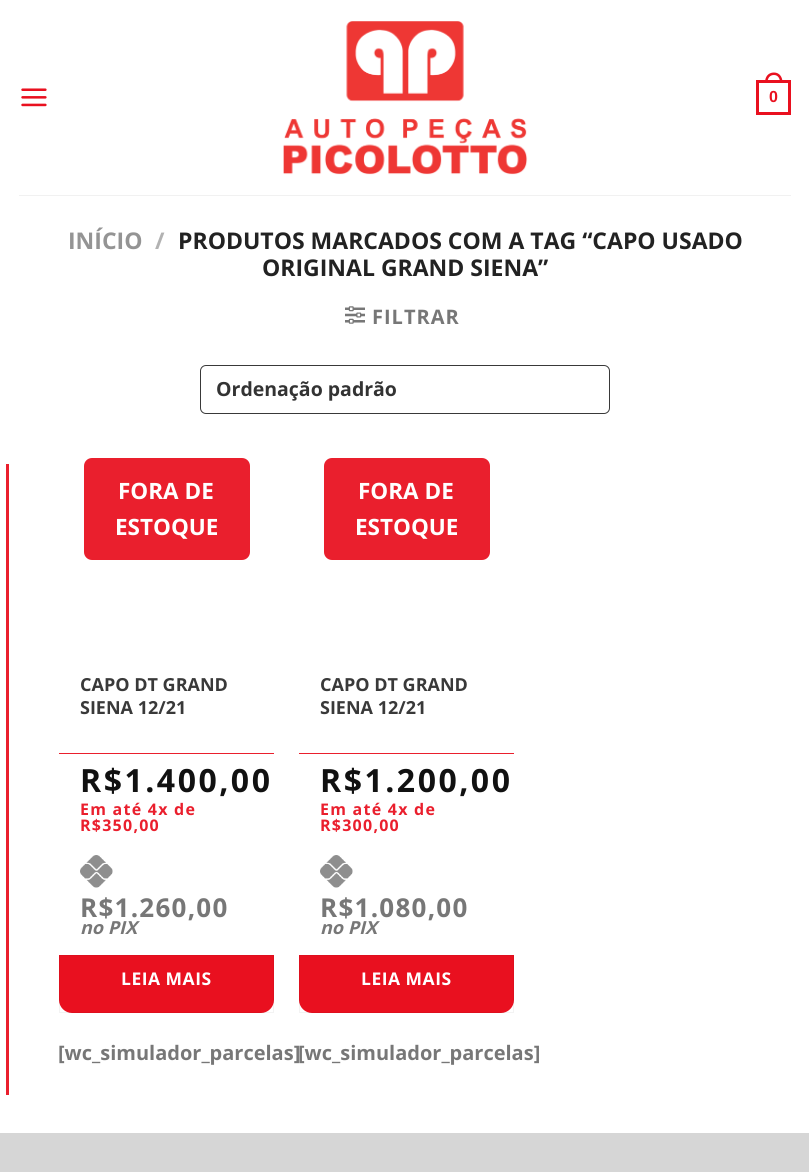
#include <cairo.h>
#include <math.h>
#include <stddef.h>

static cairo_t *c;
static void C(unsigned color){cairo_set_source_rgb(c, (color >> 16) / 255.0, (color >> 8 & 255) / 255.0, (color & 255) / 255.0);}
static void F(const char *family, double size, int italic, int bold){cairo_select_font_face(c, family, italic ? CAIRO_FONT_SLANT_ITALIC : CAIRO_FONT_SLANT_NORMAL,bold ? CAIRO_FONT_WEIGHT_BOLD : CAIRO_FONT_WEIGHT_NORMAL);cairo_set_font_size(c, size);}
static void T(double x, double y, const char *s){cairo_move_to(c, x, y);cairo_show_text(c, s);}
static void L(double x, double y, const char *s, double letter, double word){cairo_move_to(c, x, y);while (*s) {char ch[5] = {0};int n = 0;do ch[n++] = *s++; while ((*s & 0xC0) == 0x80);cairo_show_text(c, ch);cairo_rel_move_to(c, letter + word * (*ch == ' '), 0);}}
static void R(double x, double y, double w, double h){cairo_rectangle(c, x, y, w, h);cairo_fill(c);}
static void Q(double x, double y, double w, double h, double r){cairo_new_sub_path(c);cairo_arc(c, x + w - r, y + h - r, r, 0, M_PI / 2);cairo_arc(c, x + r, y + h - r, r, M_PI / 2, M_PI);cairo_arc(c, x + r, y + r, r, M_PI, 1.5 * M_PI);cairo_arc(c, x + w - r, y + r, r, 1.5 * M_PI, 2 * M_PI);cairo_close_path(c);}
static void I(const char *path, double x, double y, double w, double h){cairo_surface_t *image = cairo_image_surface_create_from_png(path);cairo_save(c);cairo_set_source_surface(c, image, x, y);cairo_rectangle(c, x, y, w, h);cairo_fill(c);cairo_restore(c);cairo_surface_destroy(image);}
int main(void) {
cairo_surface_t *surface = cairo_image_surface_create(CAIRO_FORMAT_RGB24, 809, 1172);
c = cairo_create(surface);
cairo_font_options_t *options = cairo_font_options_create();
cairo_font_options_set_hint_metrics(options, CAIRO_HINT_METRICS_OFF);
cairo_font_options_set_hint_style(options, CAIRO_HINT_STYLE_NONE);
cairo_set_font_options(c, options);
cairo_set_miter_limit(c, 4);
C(0xffffff);
cairo_paint(c);
I("1.png",21,88,26,19);
I("2.png",283,21,245,154);
cairo_rectangle(c,757.5,81.5,32,32);
C(0xe9101f);
cairo_set_line_width(c,3);
cairo_stroke(c);
cairo_set_fill_rule(c,CAIRO_FILL_RULE_EVEN_ODD);
cairo_new_path(c);
cairo_move_to(c,774,72.5);
cairo_curve_to(c,779.5,72.5,782.5,77,782.5,82.5);
cairo_line_to(c,765,82.5);
cairo_curve_to(c,765,77,768,72.5,774,72.5);
cairo_close_path(c);
cairo_move_to(c,774,75);
cairo_curve_to(c,778,75,780,78.5,780,82.5);
cairo_line_to(c,767.5,82.5);
cairo_curve_to(c,767.5,78.5,769.5,75,774,75);
cairo_close_path(c);
cairo_fill(c);
F("Liberation Sans",16,0,1);
T(769,102,"0");
C(0xf1f1f1);
R(19,195,772,1);
F("Open Sans",23,0,1);
C(0x949494);
T(68,249,"INÍCIO");
C(0xb2b2b2);
T(155,249,"/");
C(0x222222);
T(178,249,"PRODUTOS MARCADOS COM A TAG “CAPO USADO");
T(262,276,"ORIGINAL GRAND SIENA”");
I("3.png",345,306,20,18);
F("Open Sans",20,0,1);
C(0x777777);
L(372,324,"FILTRAR",1,0);
Q(200.5,365.5,409,48,5.5);
C(0x393939);
cairo_set_line_width(c,1);
cairo_stroke(c);
F("Open Sans",19.5,0,1);
C(0x333333);
T(216,396,"Ordenação padrão");
C(0xea1f2d);
R(6,464,3,631);
Q(84,458,166,102,8);
cairo_fill(c);
F("Open Sans",22.5,0,1);
C(0xffffff);
T(118,499,"FORA DE");
T(115,535,"ESTOQUE");
F("Open Sans",18,0,1);
C(0x393939);
T(80,691,"CAPO DT GRAND");
T(80,714,"SIENA 12/21");
C(0xea1f2d);
R(59,753,215,1);
F("Open Sans",32,0,1);
C(0x111111);
L(80,792,"R$1.400,00",2.5,0);
F("Open Sans",16,0,1);
C(0xea1f2d);
L(80,815,"Em até 4x de",1.25,0);
L(80,831,"R$350,00",1.25,0);
I("4.png",80,855,33,33);
F("Open Sans",26,0,1);
C(0x777777);
L(80,917,"R$1.260,00",1.25,0);
F("Open Sans",18,1,1);
T(80,934,"no PIX");
C(0xe9101f);
cairo_new_path(c);
cairo_move_to(c,59,955);
cairo_line_to(c,274,955);
cairo_line_to(c,274,1000);
cairo_curve_to(c,274,1007,268,1013,261,1013);
cairo_line_to(c,72,1013);
cairo_curve_to(c,65,1013,59,1007,59,1000);
cairo_close_path(c);
cairo_fill(c);
cairo_rectangle(c,59.5,955.5,214,57);
cairo_set_source_rgba(c,0,0,0,0.05);
cairo_stroke(c);
F("Open Sans",17.5,0,1);
C(0xffffff);
L(121,985,"LEIA MAIS",.5,0);
F("Open Sans",20,0,1);
C(0x777777);
T(58,1060,"[wc_simulador_parcelas]");
C(0xea1f2d);
Q(324,458,166,102,8);
cairo_fill(c);
F("Open Sans",22.5,0,1);
C(0xffffff);
T(358,499,"FORA DE");
T(355,535,"ESTOQUE");
F("Open Sans",18,0,1);
C(0x393939);
T(320,691,"CAPO DT GRAND");
T(320,714,"SIENA 12/21");
C(0xea1f2d);
R(299,753,215,1);
F("Open Sans",32,0,1);
C(0x111111);
L(320,792,"R$1.200,00",2.5,0);
F("Open Sans",16,0,1);
C(0xea1f2d);
L(320,815,"Em até 4x de",1.25,0);
L(320,831,"R$300,00",1.25,0);
I("5.png",320,855,33,33);
F("Open Sans",26,0,1);
C(0x777777);
L(320,917,"R$1.080,00",1.25,0);
F("Open Sans",18,1,1);
T(320,934,"no PIX");
C(0xe9101f);
cairo_new_path(c);
cairo_move_to(c,299,955);
cairo_line_to(c,514,955);
cairo_line_to(c,514,1000);
cairo_curve_to(c,514,1007,508,1013,501,1013);
cairo_line_to(c,312,1013);
cairo_curve_to(c,305,1013,299,1007,299,1000);
cairo_close_path(c);
cairo_fill(c);
cairo_rectangle(c,299.5,955.5,214,57);
cairo_set_source_rgba(c,0,0,0,0.05);
cairo_stroke(c);
F("Open Sans",17.5,0,1);
C(0xffffff);
L(361,985,"LEIA MAIS",.5,0);
F("Open Sans",20,0,1);
C(0x777777);
T(298,1060,"[wc_simulador_parcelas]");
C(0xd6d6d6);
R(0,1133,809,39);
cairo_surface_write_to_png(surface, "o.png");
cairo_font_options_destroy(options);
cairo_destroy(c);
cairo_surface_destroy(surface);
return 0;
}
